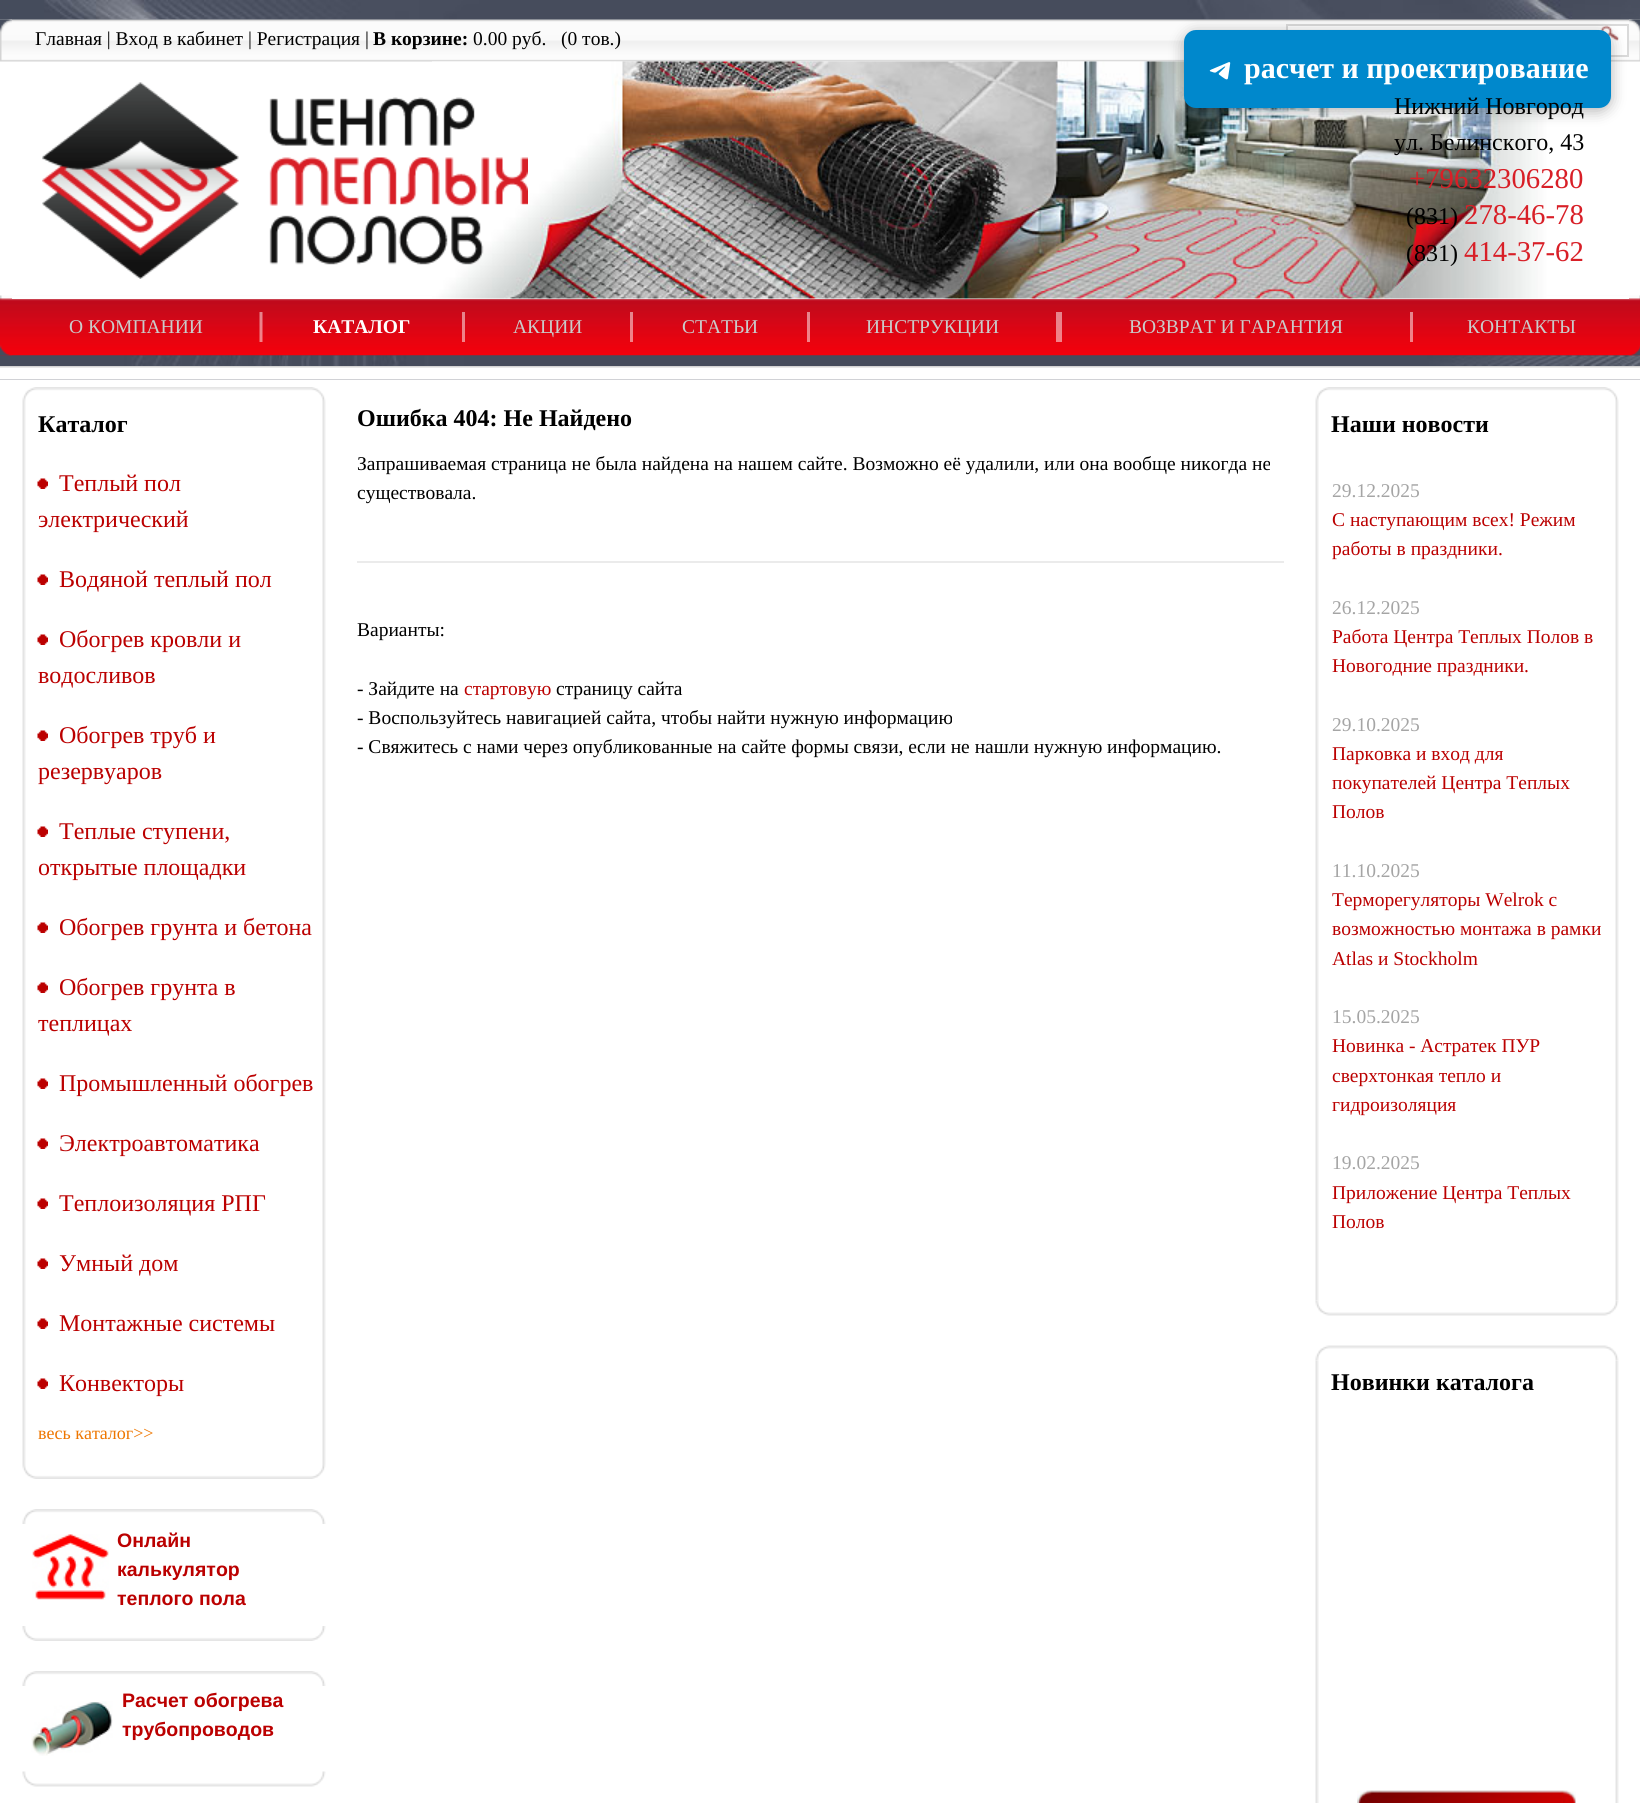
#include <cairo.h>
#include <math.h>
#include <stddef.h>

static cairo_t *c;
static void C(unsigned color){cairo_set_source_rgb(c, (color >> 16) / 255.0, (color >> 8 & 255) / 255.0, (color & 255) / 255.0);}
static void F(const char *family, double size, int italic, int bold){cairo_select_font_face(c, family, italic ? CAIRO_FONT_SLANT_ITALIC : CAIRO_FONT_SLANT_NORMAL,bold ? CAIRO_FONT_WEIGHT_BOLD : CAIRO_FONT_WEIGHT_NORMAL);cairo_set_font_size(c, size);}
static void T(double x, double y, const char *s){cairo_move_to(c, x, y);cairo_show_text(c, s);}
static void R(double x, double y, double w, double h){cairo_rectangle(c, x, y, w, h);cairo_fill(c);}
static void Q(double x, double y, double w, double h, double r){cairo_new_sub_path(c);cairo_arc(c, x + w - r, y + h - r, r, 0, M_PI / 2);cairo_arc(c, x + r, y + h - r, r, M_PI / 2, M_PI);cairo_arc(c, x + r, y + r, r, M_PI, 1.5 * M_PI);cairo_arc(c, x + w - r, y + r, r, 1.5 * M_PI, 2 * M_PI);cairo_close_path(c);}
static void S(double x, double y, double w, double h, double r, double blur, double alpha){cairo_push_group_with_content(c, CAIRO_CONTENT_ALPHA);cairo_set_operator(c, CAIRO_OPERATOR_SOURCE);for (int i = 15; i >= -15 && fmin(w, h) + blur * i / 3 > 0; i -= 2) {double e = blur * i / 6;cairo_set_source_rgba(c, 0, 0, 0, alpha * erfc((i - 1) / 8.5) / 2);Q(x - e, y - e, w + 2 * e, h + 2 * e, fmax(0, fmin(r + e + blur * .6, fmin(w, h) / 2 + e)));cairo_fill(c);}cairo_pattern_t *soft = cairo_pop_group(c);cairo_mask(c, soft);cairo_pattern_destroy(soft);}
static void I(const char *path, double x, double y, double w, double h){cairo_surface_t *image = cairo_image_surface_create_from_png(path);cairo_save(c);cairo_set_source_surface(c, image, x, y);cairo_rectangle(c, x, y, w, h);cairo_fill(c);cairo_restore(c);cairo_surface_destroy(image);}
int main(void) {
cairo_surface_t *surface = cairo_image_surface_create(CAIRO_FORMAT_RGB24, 1640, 1803);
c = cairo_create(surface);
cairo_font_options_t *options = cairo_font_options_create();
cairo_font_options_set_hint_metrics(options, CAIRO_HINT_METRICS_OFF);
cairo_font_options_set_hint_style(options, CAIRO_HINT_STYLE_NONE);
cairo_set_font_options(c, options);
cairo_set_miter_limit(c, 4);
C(0x454c5c);
cairo_paint(c);
I("1.png",44,0,1596,20);
I("2.png",0,19,1640,337);
I("3.png",0,19,12,337);
F("Liberation Serif",19.5,0,0);
C(0x000000);
T(35,45,"Главная | Вход в кабинет | Регистрация |");
F("Liberation Serif",19.5,0,1);
T(373,45,"В корзине:");
F("Liberation Serif",19.5,0,0);
T(473,45,"0.00 руб.");
T(561,45,"(0 тов.)");
C(0xffffff);
cairo_rectangle(c,1287,25,341,31);
cairo_fill_preserve(c);
C(0xdadada);
cairo_stroke(c);
I("4.png",1600,25,19,16);
I("5.png",1629,19,11,337);
C(0xffffff);
R(12,296,1617,3);
I("6.png",432,61,1115,238);
I("7.png",42,82,486,197);
C(0x000000);
S(1184,33,427,78,12,7.5,.3);
C(0x0088cc);
Q(1184,30,427,78,12);
cairo_fill(c);
F("Liberation Serif",24,0,0);
C(0x000000);
T(1394,114,"Нижний Новгород");
T(1394,150,"ул. Белинского, 43");
F("Liberation Serif",28.75,0,0);
C(0xd81f27);
T(1409,188,"+79632306280");
F("Liberation Serif",24,0,0);
C(0x000000);
T(1406,224,"(831)");
F("Liberation Serif",28.75,0,0);
C(0xd81f27);
T(1464,224,"278-46-78");
F("Liberation Serif",24,0,0);
C(0x000000);
T(1406,261,"(831)");
F("Liberation Serif",28.75,0,0);
C(0xd81f27);
T(1464,261,"414-37-62");
F("Liberation Serif",19.5,0,0);
C(0xcacccb);
T(69,333,"О КОМПАНИИ");
I("8.png",259,312,4,30);
F("Liberation Serif",19.5,0,1);
C(0xffffff);
T(313,333,"КАТАЛОГ");
I("9.png",462,312,3,30);
F("Liberation Serif",19.5,0,0);
C(0xcacccb);
T(513,333,"АКЦИИ");
I("9.png",630,312,3,30);
T(682,333,"СТАТЬИ");
I("9.png",807,312,3,30);
T(866,333,"ИНСТРУКЦИИ");
I("9.png",1056,312,3,30);
I("9.png",1059,312,3,30);
T(1129,333,"ВОЗВРАТ И ГАРАНТИЯ");
I("9.png",1410,312,3,30);
T(1467,333,"КОНТАКТЫ");
I("10.png",1209,62,22,18);
F("Liberation Serif",30,0,1);
C(0xffffff);
T(1244,78,"расчет и проектирование");
I("11.png",0,355,1640,11);
I("12.png",0,366,1640,13);
R(0,380,1640,1423);
C(0xd1d2d6);
R(0,379,1640,1);
I("13.png",22,387,304,15);
I("14.png",22,402,304,1062);
F("Liberation Serif",24,0,1);
C(0x000000);
T(38,432,"Каталог");
I("15.png",37,478,11,11);
F("Liberation Serif",24,0,0);
C(0xbb0000);
T(59,491,"Теплый пол");
T(38,527,"электрический");
I("15.png",37,574,11,11);
T(59,587,"Водяной теплый пол");
I("15.png",37,634,11,11);
T(59,647,"Обогрев кровли и");
T(38,683,"водосливов");
I("15.png",37,730,11,11);
T(59,743,"Обогрев труб и");
T(38,779,"резервуаров");
I("15.png",37,826,11,11);
T(59,839,"Теплые ступени,");
T(38,875,"открытые площадки");
I("15.png",37,922,11,11);
T(59,935,"Обогрев грунта и бетона");
I("15.png",37,982,11,11);
T(59,995,"Обогрев грунта в");
T(38,1031,"теплицах");
I("15.png",37,1078,11,11);
T(59,1091,"Промышленный обогрев");
I("15.png",37,1138,11,11);
T(59,1151,"Электроавтоматика");
I("15.png",37,1198,11,11);
T(59,1211,"Теплоизоляция РПГ");
I("15.png",37,1258,11,11);
T(59,1271,"Умный дом");
I("15.png",37,1318,11,11);
T(59,1331,"Монтажные системы");
I("15.png",37,1378,11,11);
T(59,1391,"Конвекторы");
F("Liberation Serif",18,0,0);
C(0xee7600);
T(38,1439,"весь каталог>>");
I("16.png",22,1464,304,15);
I("13.png",22,1509,304,15);
I("17.png",32,1534,77,66);
F("Liberation Sans",19.5,0,1);
C(0xbb0000);
T(117,1547,"Онлайн");
T(117,1576,"калькулятор");
T(117,1605,"теплого пола");
I("16.png",22,1626,304,15);
I("13.png",22,1671,304,15);
I("18.png",31,1701,82,55);
T(122,1707,"Расчет обогрева");
T(122,1736,"трубопроводов");
I("19.png",22,1771,304,16);
F("Liberation Serif",24,0,1);
C(0x000000);
T(357,426,"Ошибка 404: Не Найдено");
F("Liberation Serif",19.5,0,0);
T(357,470,"Запрашиваемая страница не была найдена на нашем сайте. Возможно её удалили, или она вообще никогда не");
T(357,499,"существовала.");
C(0xebebeb);
R(357,561,927,2);
C(0x000000);
T(357,636,"Варианты:");
T(357,695,"- Зайдите на");
C(0xbb0000);
T(464,695,"стартовую");
C(0x000000);
T(556,695,"страницу сайта");
T(357,724,"- Воспользуйтесь навигацией сайта, чтобы найти нужную информацию");
T(357,753,"- Свяжитесь с нами через опубликованные на сайте формы связи, если не нашли нужную информацию.");
I("20.png",1315,387,304,15);
I("21.png",1315,402,304,899);
F("Liberation Serif",24,0,1);
T(1331,432,"Наши новости");
F("Liberation Serif",19.5,0,0);
C(0xa5a5a5);
T(1332,497,"29.12.2025");
C(0xbb0000);
T(1332,526,"С наступающим всех! Режим");
T(1332,555,"работы в праздники.");
C(0xa5a5a5);
T(1332,614,"26.12.2025");
C(0xbb0000);
T(1332,643,"Работа Центра Теплых Полов в");
T(1332,672,"Новогодние праздники.");
C(0xa5a5a5);
T(1332,731,"29.10.2025");
C(0xbb0000);
T(1332,760,"Парковка и вход для");
T(1332,789,"покупателей Центра Теплых");
T(1332,818,"Полов");
C(0xa5a5a5);
T(1332,877,"11.10.2025");
C(0xbb0000);
T(1332,906,"Терморегуляторы Welrok с");
T(1332,935,"возможностью монтажа в рамки");
T(1332,965,"Atlas и Stockholm");
C(0xa5a5a5);
T(1332,1023,"15.05.2025");
C(0xbb0000);
T(1332,1052,"Новинка - Астратек ПУР");
T(1332,1082,"сверхтонкая тепло и");
T(1332,1111,"гидроизоляция");
C(0xa5a5a5);
T(1332,1169,"19.02.2025");
C(0xbb0000);
T(1332,1199,"Приложение Центра Теплых");
T(1332,1228,"Полов");
I("22.png",1315,1300,304,16);
I("23.png",1315,1345,304,16);
I("24.png",1315,1360,304,443);
F("Liberation Serif",24,0,1);
C(0x000000);
T(1331,1390,"Новинки каталога");
I("25.png",1357,1790,219,13);
cairo_surface_write_to_png(surface, "o.png");
cairo_font_options_destroy(options);
cairo_destroy(c);
cairo_surface_destroy(surface);
return 0;
}
